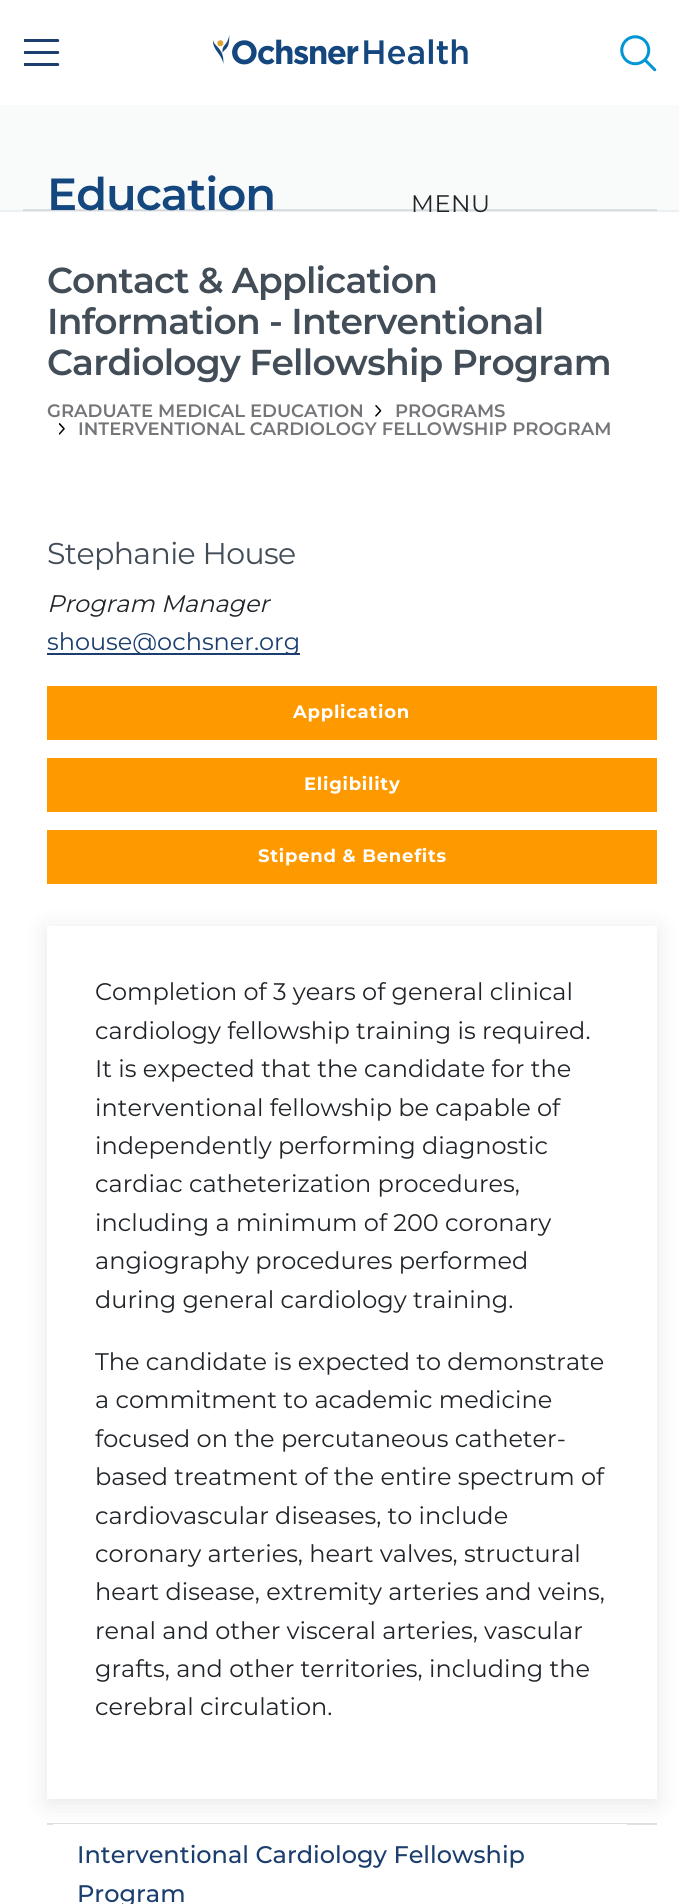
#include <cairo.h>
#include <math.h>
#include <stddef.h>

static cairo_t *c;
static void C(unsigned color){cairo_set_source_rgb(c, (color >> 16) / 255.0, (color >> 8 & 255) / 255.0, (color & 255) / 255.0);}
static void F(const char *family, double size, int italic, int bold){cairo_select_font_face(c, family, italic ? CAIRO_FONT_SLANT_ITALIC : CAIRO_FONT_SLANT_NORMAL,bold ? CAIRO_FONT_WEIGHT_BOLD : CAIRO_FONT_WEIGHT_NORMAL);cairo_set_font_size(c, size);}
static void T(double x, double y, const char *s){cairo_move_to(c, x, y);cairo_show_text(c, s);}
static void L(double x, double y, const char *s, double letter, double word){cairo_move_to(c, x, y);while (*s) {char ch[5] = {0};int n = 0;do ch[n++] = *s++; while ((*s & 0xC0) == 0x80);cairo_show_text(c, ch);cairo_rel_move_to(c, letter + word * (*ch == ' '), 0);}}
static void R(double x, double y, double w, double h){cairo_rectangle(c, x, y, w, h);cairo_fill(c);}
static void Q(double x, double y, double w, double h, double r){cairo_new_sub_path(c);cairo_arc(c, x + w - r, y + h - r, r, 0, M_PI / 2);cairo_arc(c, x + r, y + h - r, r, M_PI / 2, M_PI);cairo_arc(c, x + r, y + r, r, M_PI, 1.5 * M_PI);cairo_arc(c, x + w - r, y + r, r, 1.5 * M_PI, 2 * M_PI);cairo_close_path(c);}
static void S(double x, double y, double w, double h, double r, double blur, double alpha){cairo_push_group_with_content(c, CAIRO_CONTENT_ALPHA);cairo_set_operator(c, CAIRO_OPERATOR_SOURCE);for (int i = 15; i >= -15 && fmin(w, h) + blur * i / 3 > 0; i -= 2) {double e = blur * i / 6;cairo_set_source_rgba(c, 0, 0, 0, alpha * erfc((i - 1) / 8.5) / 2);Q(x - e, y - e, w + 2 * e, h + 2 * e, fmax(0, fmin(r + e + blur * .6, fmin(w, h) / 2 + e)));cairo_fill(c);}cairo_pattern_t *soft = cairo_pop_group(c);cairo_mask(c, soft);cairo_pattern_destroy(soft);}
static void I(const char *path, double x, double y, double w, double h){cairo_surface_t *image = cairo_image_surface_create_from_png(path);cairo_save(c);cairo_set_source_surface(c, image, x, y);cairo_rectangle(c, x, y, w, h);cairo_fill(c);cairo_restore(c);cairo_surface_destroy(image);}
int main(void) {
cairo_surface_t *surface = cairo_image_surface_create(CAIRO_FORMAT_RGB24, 679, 1904);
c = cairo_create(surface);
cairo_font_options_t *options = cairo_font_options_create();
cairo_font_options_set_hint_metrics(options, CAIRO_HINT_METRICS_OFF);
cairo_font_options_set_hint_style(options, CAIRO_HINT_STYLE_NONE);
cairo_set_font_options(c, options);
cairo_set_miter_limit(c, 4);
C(0xffffff);
cairo_paint(c);
I("1.png",24,39,36,27);
I("2.png",213,35,255,30);
I("3.png",620,35,37,37);
C(0xf9fafa);
R(0,105,679,105);
C(0xe0e1e1);
R(23,209,634,1);
C(0xeceff3);
R(0,210,679,2);
C(0xd4d7db);
R(23,210,634,1);
F("Montserrat SemiBold",45,0,0);
C(0x13477d);
L(47,210,"Education",-1,0);
F("Montserrat",24,0,0);
C(0x212529);
L(411,212,"MENU",.5,0);
F("Montserrat SemiBold",36,0,0);
C(0x424d58);
L(47,293,"Contact & Application",-.75,0);
L(47,334,"Information - Interventional",-.75,0);
L(47,375,"Cardiology Fellowship Program",-.75,0);
F("Montserrat SemiBold",18,0,0);
C(0x757679);
T(47,417,"GRADUATE MEDICAL EDUCATION");
I("4.png",375,405,7,12);
T(395,417,"PROGRAMS");
I("5.png",59,423,6,12);
T(78,435,"INTERVENTIONAL CARDIOLOGY FELLOWSHIP PROGRAM");
F("Montserrat",30,0,0);
C(0x424d58);
L(47,564,"Stephanie House",-.6,0);
F("Montserrat",24,1,0);
C(0x212529);
T(47,612,"Program Manager");
C(0x1b3e6f);
R(47,653,253,2);
F("Montserrat",24,0,0);
T(47,650,"shouse@ochsner.org");
C(0xff9900);
R(47,686,610,54);
F("Montserrat",18,0,1);
C(0xffffff);
L(293,718,"Application",.75,0);
C(0xff9900);
R(47,758,610,54);
C(0xffffff);
L(304,790,"Eligibility",.75,0);
C(0xff9900);
R(47,830,610,54);
C(0xffffff);
L(258,862,"Stipend & Benefits",.75,0);
cairo_save(c);
cairo_set_fill_rule(c,CAIRO_FILL_RULE_EVEN_ODD);
cairo_new_path(c);
cairo_move_to(c,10,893);
cairo_line_to(c,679,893);
cairo_line_to(c,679,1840);
cairo_line_to(c,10,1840);
cairo_close_path(c);
cairo_move_to(c,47,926);
cairo_line_to(c,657,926);
cairo_line_to(c,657,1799);
cairo_line_to(c,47,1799);
cairo_close_path(c);
cairo_clip(c);
C(0x000000);
S(47,930,610,873,0,12,.1);
cairo_restore(c);
F("Montserrat",24,0,0);
C(0x212529);
T(95,1000,"Completion of 3 years of general clinical");
T(95,1039,"cardiology fellowship training is required.");
T(95,1077,"It is expected that the candidate for the");
T(95,1116,"interventional fellowship be capable of");
T(95,1154,"independently performing diagnostic");
T(95,1192,"cardiac catheterization procedures,");
T(95,1231,"including a minimum of 200 coronary");
T(95,1269,"angiography procedures performed");
T(95,1308,"during general cardiology training.");
T(95,1370,"The candidate is expected to demonstrate");
T(95,1408,"a commitment to academic medicine");
T(95,1447,"focused on the percutaneous catheter-");
T(95,1485,"based treatment of the entire spectrum of");
T(95,1524,"cardiovascular diseases, to include");
T(95,1562,"coronary arteries, heart valves, structural");
T(95,1600,"heart disease, extremity arteries and veins,");
T(95,1639,"renal and other visceral arteries, vascular");
T(95,1677,"grafts, and other territories, including the");
T(95,1715,"cerebral circulation.");
C(0xdde1e3);
R(47,1823,610,2);
C(0xffffff);
R(53,1824,574,1);
F("Montserrat Medium",24,0,0);
C(0x1b3e6f);
T(77,1863,"Interventional Cardiology Fellowship");
T(77,1902,"Program");
cairo_surface_write_to_png(surface, "o.png");
cairo_font_options_destroy(options);
cairo_destroy(c);
cairo_surface_destroy(surface);
return 0;
}
